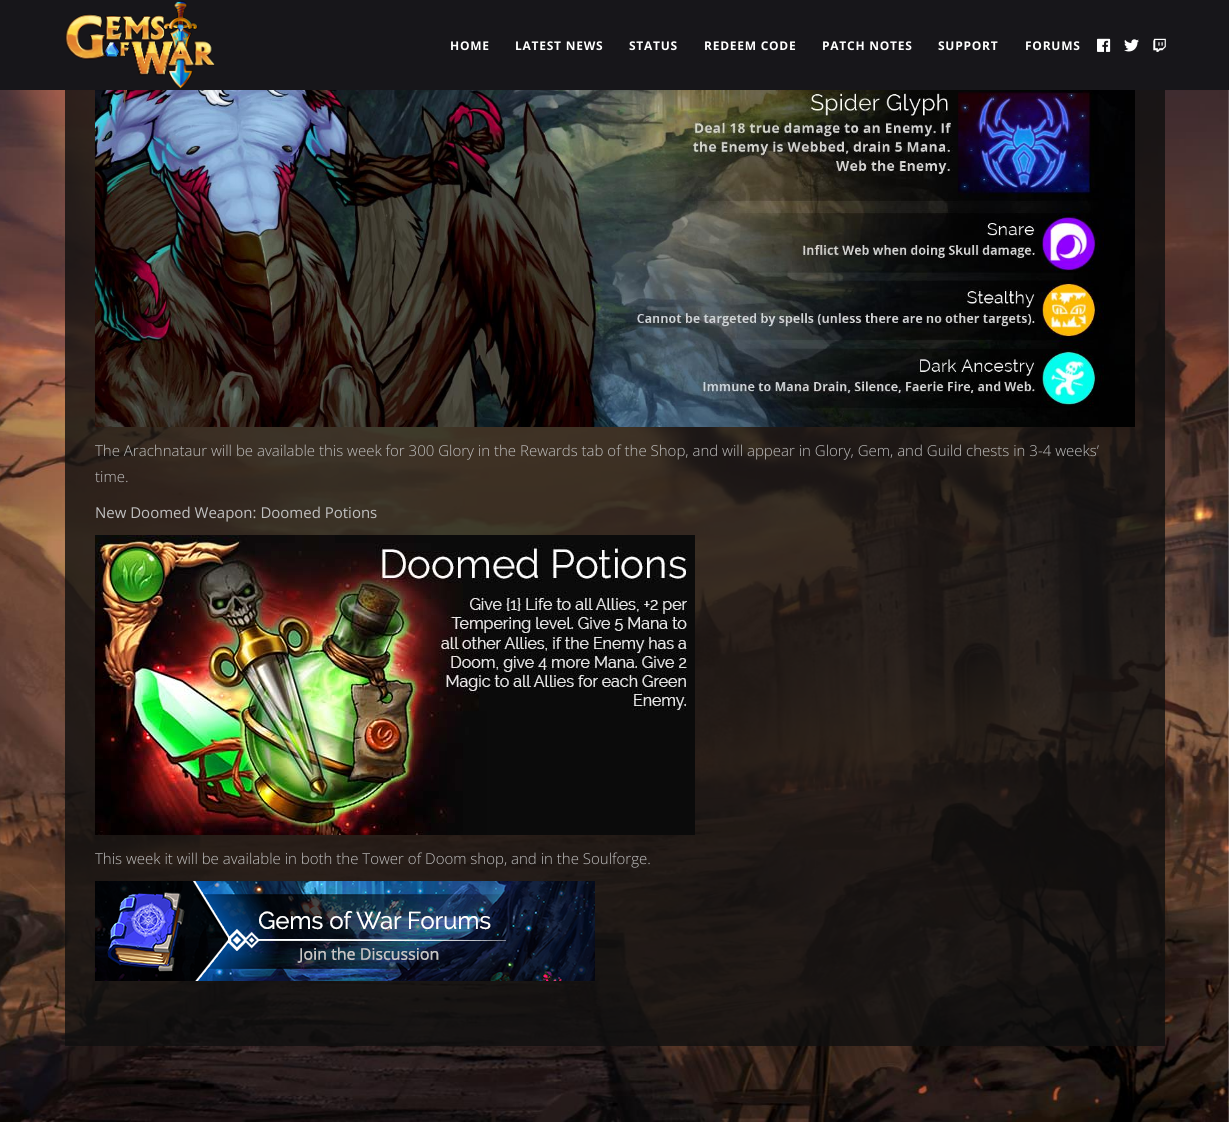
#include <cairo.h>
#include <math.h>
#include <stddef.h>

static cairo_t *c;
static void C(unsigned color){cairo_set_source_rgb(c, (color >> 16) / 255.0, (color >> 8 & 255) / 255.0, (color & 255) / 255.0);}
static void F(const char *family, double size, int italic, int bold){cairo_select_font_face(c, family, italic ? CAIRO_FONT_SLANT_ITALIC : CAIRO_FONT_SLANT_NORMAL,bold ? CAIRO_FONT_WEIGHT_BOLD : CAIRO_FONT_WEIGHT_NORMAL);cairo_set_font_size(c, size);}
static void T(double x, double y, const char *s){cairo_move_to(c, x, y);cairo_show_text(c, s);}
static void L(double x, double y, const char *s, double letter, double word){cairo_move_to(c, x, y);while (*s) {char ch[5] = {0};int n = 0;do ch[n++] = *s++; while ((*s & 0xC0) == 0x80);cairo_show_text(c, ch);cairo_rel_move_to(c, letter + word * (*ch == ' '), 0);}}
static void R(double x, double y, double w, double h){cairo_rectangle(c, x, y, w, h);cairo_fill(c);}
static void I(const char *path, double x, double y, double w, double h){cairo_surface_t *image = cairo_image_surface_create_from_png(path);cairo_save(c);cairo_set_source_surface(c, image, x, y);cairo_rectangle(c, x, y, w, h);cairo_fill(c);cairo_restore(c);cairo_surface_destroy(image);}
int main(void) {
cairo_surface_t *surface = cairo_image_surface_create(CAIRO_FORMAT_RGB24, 1229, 1122);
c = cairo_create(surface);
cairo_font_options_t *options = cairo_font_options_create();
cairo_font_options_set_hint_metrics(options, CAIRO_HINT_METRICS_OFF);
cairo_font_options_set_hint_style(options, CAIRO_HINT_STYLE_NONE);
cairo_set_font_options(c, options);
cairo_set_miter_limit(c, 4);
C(0xffffff);
cairo_paint(c);
C(0x17161a);
R(0,0,1229,90);
I("1.png",65,1,150,88);
F("Open Sans",12,0,1);
C(0xffffff);
L(450,50,"HOME",.75,0);
L(515,50,"LATEST NEWS",.75,0);
L(629,50,"STATUS",.75,0);
L(704,50,"REDEEM CODE",.75,0);
L(822,50,"PATCH NOTES",.75,0);
L(938,50,"SUPPORT",.75,0);
L(1025,50,"FORUMS",.75,0);
I("2.png",1097,38,14,14);
I("3.png",1124,39,15,13);
I("4.png",1153,38,13,14);
I("5.png",0,90,1229,1032);
cairo_set_source_rgba(c,0.059,0.059,0.059,0.8);
R(65,90,1100,956);
I("6.png",95,90,1040,337);
F("Open Sans Light",15,0,0);
C(0xc0c0c0);
T(95,456,"The Arachnataur will be available this week for 300 Glory in the Rewards tab of the Shop, and will appear in Glory, Gem, and Guild chests in 3-4 weeks’");
T(95,482,"time.");
F("Open Sans",15,0,0);
T(95,518,"New Doomed Weapon: Doomed Potions");
I("7.png",95,535,600,300);
F("Open Sans Light",15,0,0);
T(95,864,"This week it will be available in both the Tower of Doom shop, and in the Soulforge.");
I("8.png",95,881,500,100);
cairo_surface_write_to_png(surface, "o.png");
cairo_font_options_destroy(options);
cairo_destroy(c);
cairo_surface_destroy(surface);
return 0;
}
